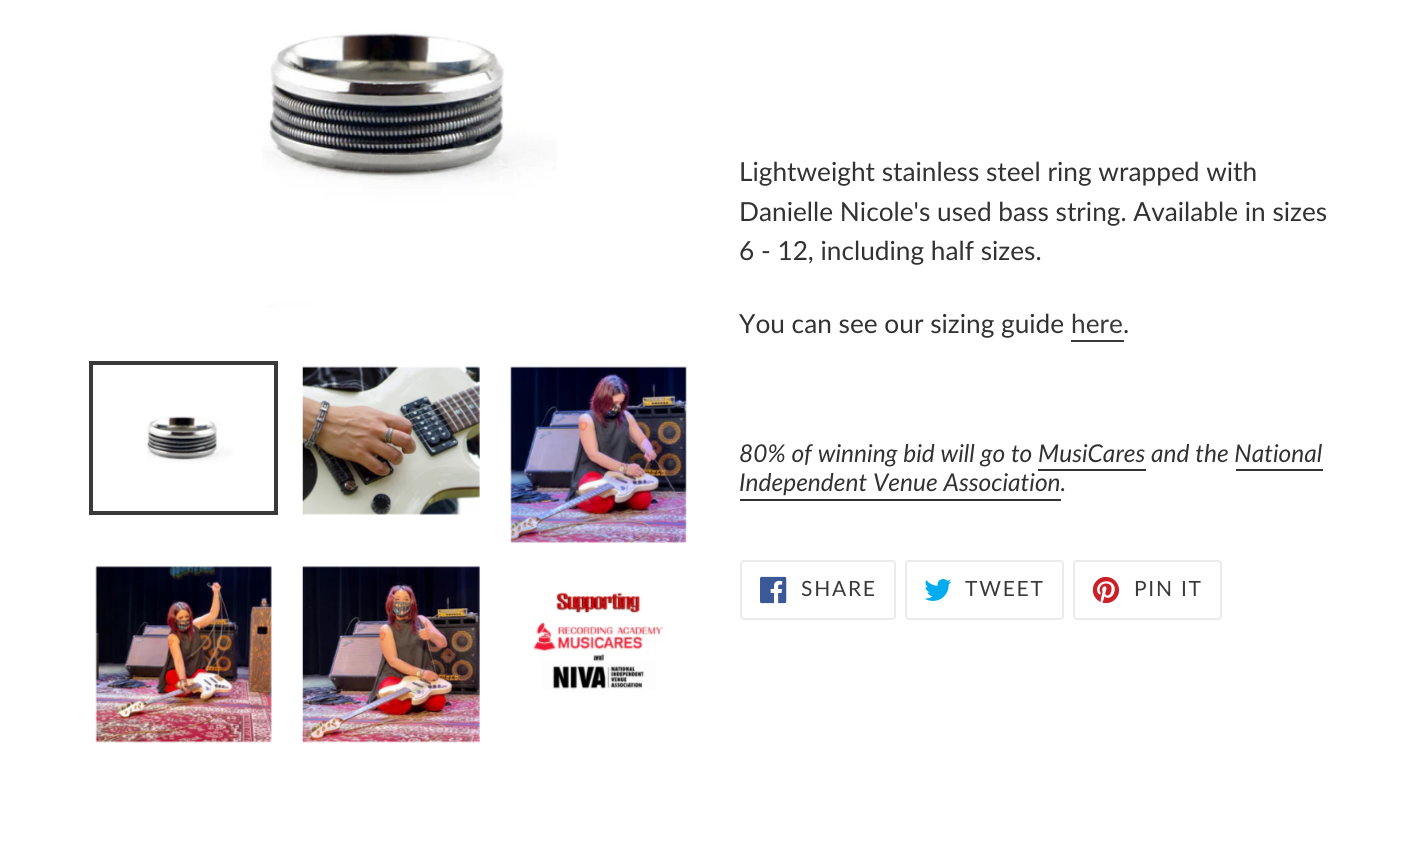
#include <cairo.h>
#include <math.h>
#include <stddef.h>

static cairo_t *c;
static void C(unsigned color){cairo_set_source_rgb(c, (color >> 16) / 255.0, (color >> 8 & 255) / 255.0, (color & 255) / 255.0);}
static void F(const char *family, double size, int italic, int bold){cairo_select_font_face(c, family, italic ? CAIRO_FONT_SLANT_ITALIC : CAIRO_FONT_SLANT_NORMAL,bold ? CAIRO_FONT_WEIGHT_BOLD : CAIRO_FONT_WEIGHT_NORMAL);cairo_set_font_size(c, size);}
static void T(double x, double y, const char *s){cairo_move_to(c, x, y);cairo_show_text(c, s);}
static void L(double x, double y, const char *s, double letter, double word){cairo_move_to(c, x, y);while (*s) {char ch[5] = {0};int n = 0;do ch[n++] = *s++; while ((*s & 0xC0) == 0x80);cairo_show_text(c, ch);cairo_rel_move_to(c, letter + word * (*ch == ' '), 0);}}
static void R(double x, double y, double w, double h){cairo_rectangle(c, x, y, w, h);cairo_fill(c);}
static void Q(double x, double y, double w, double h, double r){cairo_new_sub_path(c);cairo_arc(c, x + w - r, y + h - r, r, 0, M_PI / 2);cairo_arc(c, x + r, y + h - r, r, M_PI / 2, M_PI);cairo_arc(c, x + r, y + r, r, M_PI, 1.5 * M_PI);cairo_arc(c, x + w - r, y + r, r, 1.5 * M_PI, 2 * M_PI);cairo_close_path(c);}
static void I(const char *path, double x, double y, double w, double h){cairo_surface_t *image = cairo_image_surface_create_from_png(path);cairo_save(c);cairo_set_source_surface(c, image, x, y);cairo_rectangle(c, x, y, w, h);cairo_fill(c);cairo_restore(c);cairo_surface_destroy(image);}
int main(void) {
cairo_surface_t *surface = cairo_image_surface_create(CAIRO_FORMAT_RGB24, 1425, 856);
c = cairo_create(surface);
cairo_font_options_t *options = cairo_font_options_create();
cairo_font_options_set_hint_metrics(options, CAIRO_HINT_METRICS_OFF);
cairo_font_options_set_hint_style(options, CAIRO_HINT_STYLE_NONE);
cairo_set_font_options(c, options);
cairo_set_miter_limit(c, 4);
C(0xffffff);
cairo_paint(c);
I("1.png",262,31,295,276);
cairo_rectangle(c,91,363,185,150);
C(0x3a3a3a);
cairo_set_line_width(c,4);
cairo_stroke(c);
I("2.png",146,416,87,47);
I("3.png",302,366,178,149);
I("4.png",510,366,177,177);
I("5.png",95,566,177,177);
I("6.png",302,566,178,177);
I("7.png",533,591,131,100);
F("Lato",26.25,0,0);
C(0x333232);
T(739,181,"Lightweight stainless steel ring wrapped with");
T(739,221,"Danielle Nicole's used bass string. Available in sizes");
T(739,260,"6 - 12, including half sizes.");
T(739,333,"You can see our sizing guide");
C(0x3a3a3a);
T(1071,333,"here");
C(0x333232);
T(1123,333,".");
C(0x3a3a3a);
R(1071,340,53,2);
F("Lato",24.5,1,0);
C(0x333232);
T(739,462,"80% of winning bid will go to MusiCares and the National");
R(1236,469,87,2);
T(739,491,"Independent Venue Association.");
R(1038,469,108,2);
R(740,499,321,2);
Q(741,561,154,58,3);
C(0xebebeb);
cairo_set_line_width(c,2);
cairo_stroke(c);
I("8.png",760,576,27,28);
F("Lato",21,0,0);
C(0x3a3a3a);
L(801,596,"SHARE",1.75,0);
Q(906,561,157,58,3);
C(0xebebeb);
cairo_stroke(c);
I("9.png",924,579,28,22);
C(0x3a3a3a);
L(965,596,"TWEET",1.75,0);
Q(1074,561,147,58,3);
C(0xebebeb);
cairo_stroke(c);
I("10.png",1092,576,28,28);
C(0x3a3a3a);
L(1134,596,"PIN IT",1.75,0);
cairo_surface_write_to_png(surface, "o.png");
cairo_font_options_destroy(options);
cairo_destroy(c);
cairo_surface_destroy(surface);
return 0;
}
